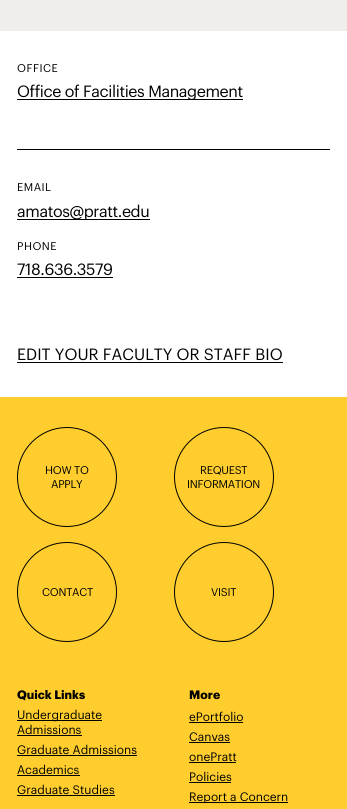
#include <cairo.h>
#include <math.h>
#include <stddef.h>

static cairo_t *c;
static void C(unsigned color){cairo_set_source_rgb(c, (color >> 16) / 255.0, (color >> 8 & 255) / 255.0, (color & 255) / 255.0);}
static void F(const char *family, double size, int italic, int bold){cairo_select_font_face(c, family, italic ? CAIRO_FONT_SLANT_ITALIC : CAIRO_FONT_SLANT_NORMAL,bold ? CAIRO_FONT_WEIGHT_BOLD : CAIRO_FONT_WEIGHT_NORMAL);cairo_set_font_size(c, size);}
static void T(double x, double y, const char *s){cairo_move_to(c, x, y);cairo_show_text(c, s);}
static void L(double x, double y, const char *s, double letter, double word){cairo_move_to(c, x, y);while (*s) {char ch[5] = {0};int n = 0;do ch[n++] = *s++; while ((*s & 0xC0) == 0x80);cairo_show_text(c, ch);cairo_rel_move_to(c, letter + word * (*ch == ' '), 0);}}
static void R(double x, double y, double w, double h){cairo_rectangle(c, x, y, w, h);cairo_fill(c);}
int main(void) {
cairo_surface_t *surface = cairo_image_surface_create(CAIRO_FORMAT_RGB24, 347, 809);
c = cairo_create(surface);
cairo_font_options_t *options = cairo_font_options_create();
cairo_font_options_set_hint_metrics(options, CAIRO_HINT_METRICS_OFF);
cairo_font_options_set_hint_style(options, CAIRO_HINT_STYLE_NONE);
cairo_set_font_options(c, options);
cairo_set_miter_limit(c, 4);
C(0xffffff);
cairo_paint(c);
C(0xf0eded);
R(0,0,347,31);
F("Graphik",11,0,0);
C(0x000000);
L(17,72,"OFFICE",.5,0);
R(17,99,226,1);
F("Graphik",16,0,0);
L(17,97,"Office of Facilities Management",-.4,0);
R(17,149,313,1);
F("Graphik",11,0,0);
L(17,191,"EMAIL",.5,0);
R(17,219,133,1);
F("Graphik",16,0,0);
L(17,217,"amatos@pratt.edu",-.4,0);
F("Graphik",11,0,0);
L(17,250,"PHONE",.5,0);
F("Graphik",16,0,0);
L(17,275,"718.636.3579",-.4,0);
R(17,277,96,1);
T(17,360,"EDIT YOUR FACULTY OR STAFF BIO");
R(17,362,266,1);
C(0xffce2e);
R(0,397,347,412);
cairo_new_path(c);
cairo_arc(c,67,477,49.5,0,2 * M_PI);
C(0x000000);
cairo_set_line_width(c,1);
cairo_stroke(c);
F("Graphik",11,0,0);
L(45,474,"HOW TO",-.25,0);
L(51,488,"APPLY",-.25,0);
cairo_new_path(c);
cairo_arc(c,224,477,49.5,0,2 * M_PI);
cairo_stroke(c);
L(200,474,"REQUEST",-.25,0);
L(187,488,"INFORMATION",-.25,0);
cairo_new_path(c);
cairo_arc(c,67,592,49.5,0,2 * M_PI);
cairo_stroke(c);
L(42,596,"CONTACT",-.25,0);
cairo_new_path(c);
cairo_arc(c,224,592,49.5,0,2 * M_PI);
cairo_stroke(c);
L(211,596,"VISIT",-.25,0);
F("Graphik",12,0,1);
T(17,699,"Quick Links");
R(17,720,85,1);
F("Graphik",12,0,0);
T(17,719,"Undergraduate");
T(17,734,"Admissions");
R(17,735,65,1);
T(17,754,"Graduate Admissions");
R(17,755,120,1);
T(17,774,"Academics");
R(17,775,63,1);
T(17,794,"Graduate Studies");
R(17,795,98,1);
F("Graphik",12,0,1);
T(189,699,"More");
F("Graphik",12,0,0);
T(189,721,"ePortfolio");
R(189,722,54,1);
T(189,741,"Canvas");
R(189,742,41,1);
T(189,761,"onePratt");
R(189,762,47,1);
T(189,781,"Policies");
R(189,782,42,1);
R(189,802,99,1);
T(189,801,"Report a Concern");
cairo_surface_write_to_png(surface, "o.png");
cairo_font_options_destroy(options);
cairo_destroy(c);
cairo_surface_destroy(surface);
return 0;
}
